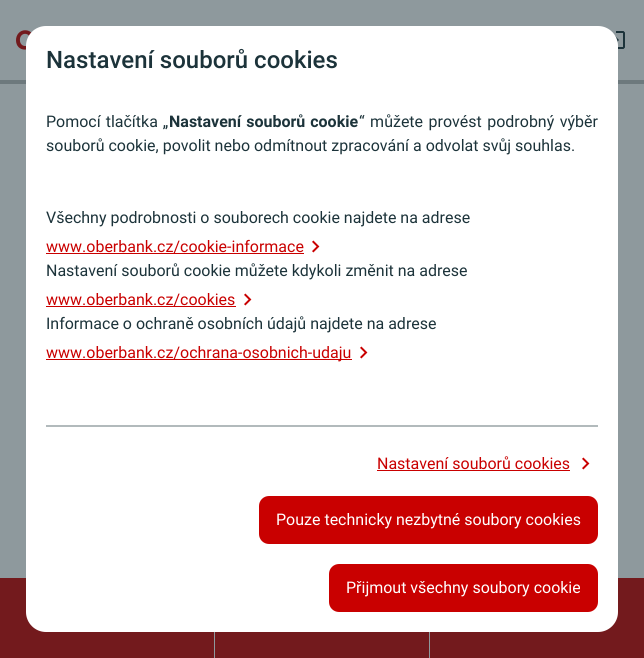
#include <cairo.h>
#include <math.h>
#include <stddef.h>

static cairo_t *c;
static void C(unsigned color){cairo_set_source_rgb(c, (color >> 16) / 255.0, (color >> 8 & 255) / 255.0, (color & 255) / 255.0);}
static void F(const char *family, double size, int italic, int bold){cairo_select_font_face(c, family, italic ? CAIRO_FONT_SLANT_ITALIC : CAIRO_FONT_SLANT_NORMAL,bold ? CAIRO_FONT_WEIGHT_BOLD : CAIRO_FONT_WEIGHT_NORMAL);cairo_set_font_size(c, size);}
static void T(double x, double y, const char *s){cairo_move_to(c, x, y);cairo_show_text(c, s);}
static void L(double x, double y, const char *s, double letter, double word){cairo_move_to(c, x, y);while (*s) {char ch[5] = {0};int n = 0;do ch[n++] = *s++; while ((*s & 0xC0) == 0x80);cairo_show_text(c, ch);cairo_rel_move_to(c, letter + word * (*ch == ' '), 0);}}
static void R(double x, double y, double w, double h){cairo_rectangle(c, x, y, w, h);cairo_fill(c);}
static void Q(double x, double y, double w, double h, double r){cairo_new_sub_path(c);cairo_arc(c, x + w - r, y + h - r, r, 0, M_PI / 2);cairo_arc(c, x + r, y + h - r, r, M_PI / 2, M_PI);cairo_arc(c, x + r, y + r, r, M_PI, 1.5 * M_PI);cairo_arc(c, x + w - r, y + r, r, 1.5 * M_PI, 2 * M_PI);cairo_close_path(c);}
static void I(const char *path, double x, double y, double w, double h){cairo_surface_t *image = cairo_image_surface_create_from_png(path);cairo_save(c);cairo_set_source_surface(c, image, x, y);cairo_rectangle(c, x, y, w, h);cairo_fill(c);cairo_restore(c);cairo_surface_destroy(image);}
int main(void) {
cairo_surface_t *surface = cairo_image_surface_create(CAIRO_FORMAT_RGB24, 644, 658);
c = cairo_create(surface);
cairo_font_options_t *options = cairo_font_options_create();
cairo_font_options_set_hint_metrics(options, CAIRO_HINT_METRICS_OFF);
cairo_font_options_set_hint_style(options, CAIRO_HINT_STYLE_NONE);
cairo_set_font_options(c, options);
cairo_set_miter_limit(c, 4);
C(0x8e999d);
cairo_paint(c);
cairo_set_source_rgba(c,0.055,0.102,0.114,0.25);
R(0,80,644,4);
I("1.png",16,30,16,20);
I("2.png",614,31,11,18);
C(0x731a1d);
R(0,578,214,80);
R(430,578,214,80);
C(0xffffff);
Q(26,26,592,606,20);
cairo_fill(c);
F("Roboto Medium",24,0,0);
C(0x1c333a);
T(46,68,"Nastavení souborů cookies");
F("Roboto",16,0,0);
L(46,127,"Pomocí tlačítka „",0,1);
F("Roboto",16,0,1);
L(169,127,"Nastavení souborů cookie",0,1);
F("Roboto",16,0,0);
L(359,127,"“ můžete provést podrobný výběr",0,1.5);
T(46,151,"souborů cookie, povolit nebo odmítnout zpracování a odvolat svůj souhlas.");
T(46,223,"Všechny podrobnosti o souborech cookie najdete na adrese");
C(0xc90000);
T(46,252,"www.oberbank.cz/cookie-informace");
R(46,253,258,1);
I("3.png",312,240,8,13);
C(0x1c333a);
T(46,276,"Nastavení souborů cookie můžete kdykoli změnit na adrese");
C(0xc90000);
T(46,305,"www.oberbank.cz/cookies");
R(46,306,190,1);
I("3.png",244,293,8,13);
C(0x1c333a);
T(46,329,"Informace o ochraně osobních údajů najdete na adrese");
C(0xc90000);
R(46,359,306,1);
T(46,358,"www.oberbank.cz/ochrana-osobnich-udaju");
I("3.png",360,346,8,13);
C(0xb2babc);
R(46,425,552,2);
C(0xc90000);
T(377,469,"Nastavení souborů cookies");
R(377,470,193,1);
I("3.png",582,457,8,13);
Q(259,496,339,48,10);
cairo_fill(c);
C(0xffffff);
T(276,525,"Pouze technicky nezbytné soubory cookies");
C(0xc90000);
Q(329,564,269,48,10);
cairo_fill(c);
C(0xffffff);
T(346,593,"Přijmout všechny soubory cookie");
C(0x731a1d);
R(215,632,214,26);
cairo_surface_write_to_png(surface, "o.png");
cairo_font_options_destroy(options);
cairo_destroy(c);
cairo_surface_destroy(surface);
return 0;
}
